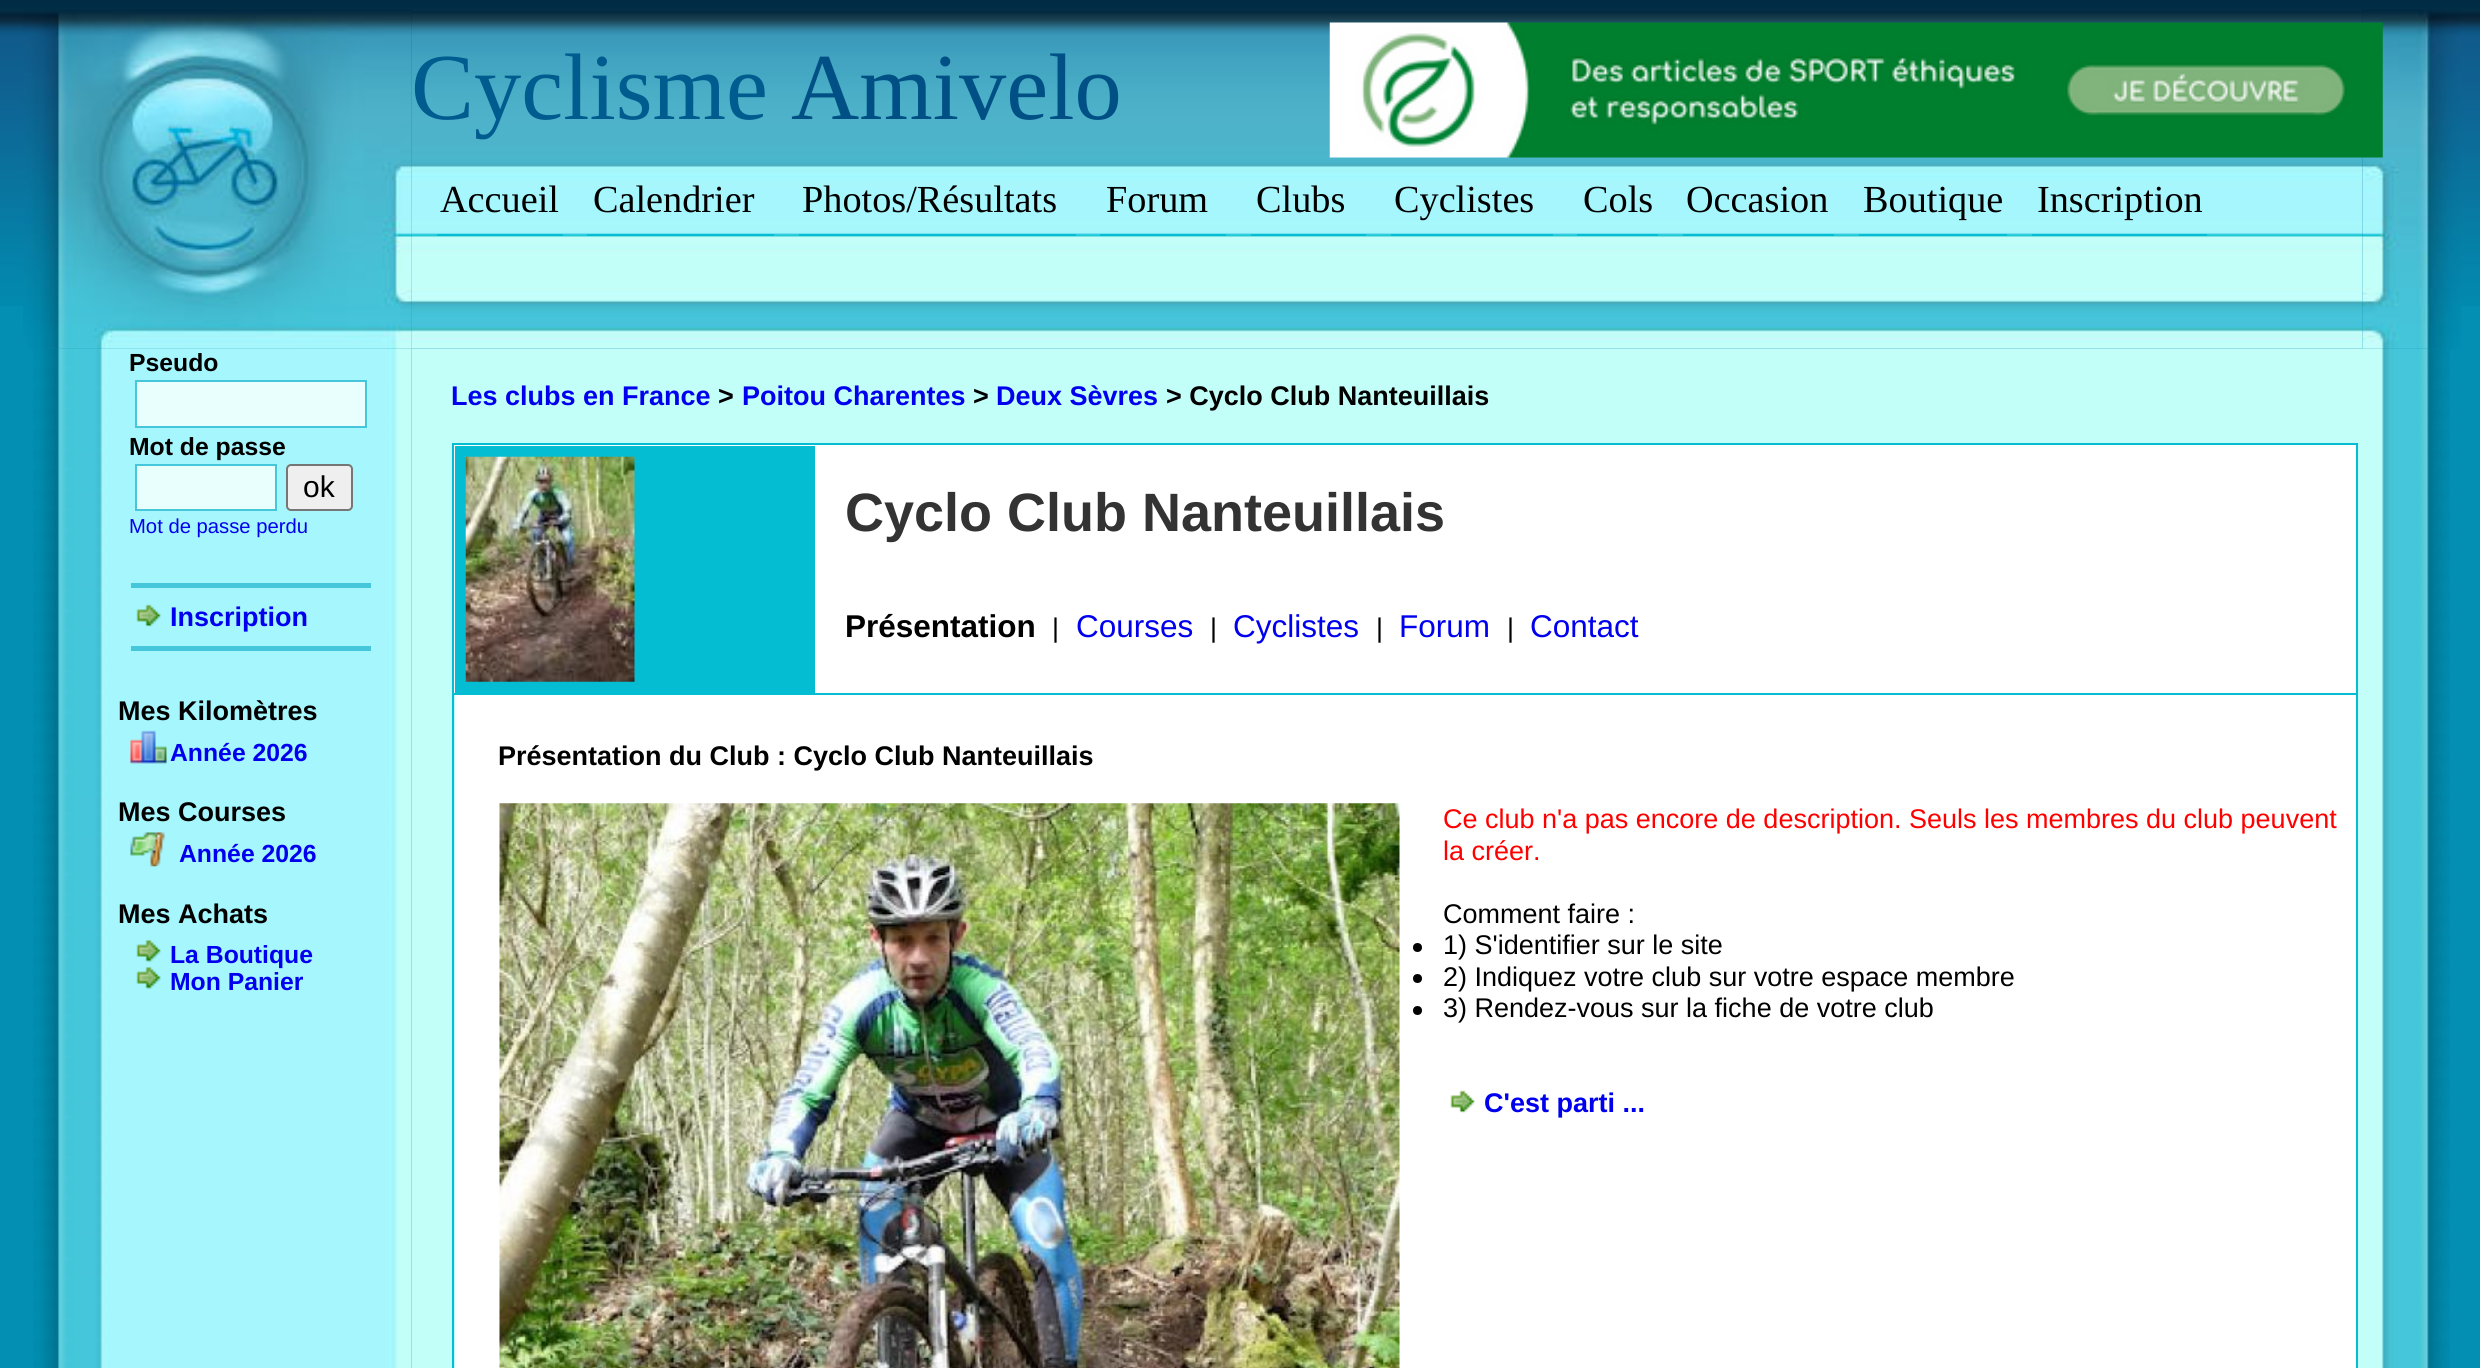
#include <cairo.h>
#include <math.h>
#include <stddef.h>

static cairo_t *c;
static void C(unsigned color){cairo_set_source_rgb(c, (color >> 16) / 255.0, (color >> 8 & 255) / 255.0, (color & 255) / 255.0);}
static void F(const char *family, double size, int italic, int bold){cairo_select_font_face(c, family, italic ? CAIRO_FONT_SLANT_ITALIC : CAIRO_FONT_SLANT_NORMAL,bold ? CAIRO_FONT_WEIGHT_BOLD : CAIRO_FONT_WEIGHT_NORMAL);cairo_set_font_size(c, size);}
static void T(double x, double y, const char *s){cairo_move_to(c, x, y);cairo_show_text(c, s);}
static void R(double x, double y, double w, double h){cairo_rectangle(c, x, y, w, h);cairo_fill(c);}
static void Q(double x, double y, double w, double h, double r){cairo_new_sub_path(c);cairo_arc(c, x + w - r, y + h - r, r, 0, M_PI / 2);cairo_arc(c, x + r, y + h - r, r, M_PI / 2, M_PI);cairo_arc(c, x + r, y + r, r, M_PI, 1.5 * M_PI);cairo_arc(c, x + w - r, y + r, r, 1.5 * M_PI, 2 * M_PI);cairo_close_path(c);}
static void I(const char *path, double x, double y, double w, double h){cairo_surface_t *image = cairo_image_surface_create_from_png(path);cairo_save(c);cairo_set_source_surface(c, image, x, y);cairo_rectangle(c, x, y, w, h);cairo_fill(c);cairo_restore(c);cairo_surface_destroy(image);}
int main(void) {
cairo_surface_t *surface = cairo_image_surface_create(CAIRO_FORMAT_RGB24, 2480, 1368);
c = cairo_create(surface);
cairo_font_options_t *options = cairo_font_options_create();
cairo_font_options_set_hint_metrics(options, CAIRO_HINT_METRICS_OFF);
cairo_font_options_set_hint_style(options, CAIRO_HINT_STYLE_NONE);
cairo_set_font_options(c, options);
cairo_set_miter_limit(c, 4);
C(0x038fb3);
cairo_paint(c);
I("1.png",0,0,2480,306);
I("3.png",411,13,1952,336);
I("2.png",23,9,389,340);
F("Liberation Serif",94.5,0,0);
C(0x005b8f);
T(411,119,"Cyclisme");
C(0x005085);
T(791,119,"Amivelo");
C(0xc3fff9);
R(412,349,1951,1019);
I("14.png",2362,348,88,1020);
I("5.png",2362,9,99,340);
I("4.png",1329,22,1054,136);
C(0x05bdd2);
R(437,234,126,2);
F("Liberation Serif",38.25,0,0);
C(0x000000);
T(440,212,"Accueil");
C(0x05bdd2);
R(587,234,187,2);
C(0x000000);
T(593,212,"Calendrier");
C(0x05bdd2);
R(799,234,277,2);
C(0x000000);
T(802,212,"Photos/Résultats");
C(0x05bdd2);
R(1100,234,126,2);
C(0x000000);
T(1106,212,"Forum");
C(0x05bdd2);
R(1251,234,115,2);
C(0x000000);
T(1256,212,"Clubs");
C(0x05bdd2);
R(1391,234,162,2);
C(0x000000);
T(1394,212,"Cyclistes");
C(0x05bdd2);
R(1577,234,81,2);
C(0x000000);
T(1583,212,"Cols");
C(0x05bdd2);
R(1683,234,151,2);
C(0x000000);
T(1686,212,"Occasion");
C(0x05bdd2);
R(1859,234,148,2);
C(0x000000);
T(1863,212,"Boutique");
C(0x05bdd2);
R(2032,234,175,2);
C(0x000000);
T(2037,212,"Inscription");
I("6.png",33,348,379,1020);
F("Liberation Sans",24.75,0,1);
T(129,371,"Pseudo");
C(0xe9fffd);
cairo_rectangle(c,136,381,230,46);
cairo_fill_preserve(c);
C(0x45c6db);
cairo_stroke(c);
C(0x000000);
T(129,455,"Mot de passe");
C(0xe9fffd);
cairo_rectangle(c,136,465,140,45);
cairo_fill_preserve(c);
C(0x45c6db);
cairo_stroke(c);
C(0xefefef);
Q(287,465,65,45,4);
cairo_fill_preserve(c);
C(0x767676);
cairo_stroke(c);
F("Liberation Sans",30,0,0);
C(0x000000);
T(303,497,"ok");
F("Liberation Sans",20.25,0,0);
C(0x0000ee);
T(129,533,"Mot de passe perdu");
C(0x45c6db);
R(131,583,240,5);
I("7.png",136,604,25,23);
F("Liberation Sans",27,0,1);
C(0x0000ee);
T(170,626,"Inscription");
C(0x45c6db);
R(131,646,240,5);
C(0x000000);
T(118,720,"Mes Kilomètres");
I("8.png",130,730,37,34);
F("Liberation Sans",24.75,0,1);
C(0x0000ee);
T(170,761,"Année 2026");
F("Liberation Sans",27,0,1);
C(0x000000);
T(118,821,"Mes Courses");
I("9.png",130,832,35,35);
F("Liberation Sans",24.75,0,1);
C(0x0000ee);
T(179,862,"Année 2026");
F("Liberation Sans",27,0,1);
C(0x000000);
T(118,923,"Mes Achats");
I("10.png",136,940,25,23);
F("Liberation Sans",24.75,0,1);
C(0x0000ee);
T(170,963,"La Boutique");
I("10.png",136,967,25,23);
T(170,990,"Mon Panier");
F("Liberation Sans",27,0,1);
T(451,405,"Les clubs en France");
C(0x000000);
T(718,405,">");
C(0x0000ee);
T(742,405,"Poitou Charentes");
C(0x000000);
T(973,405,">");
C(0x0000ee);
T(996,405,"Deux Sèvres");
C(0x000000);
T(1166,405,"> Cyclo Club Nanteuillais");
C(0xffffff);
cairo_rectangle(c,453,444,1904,250);
cairo_fill_preserve(c);
C(0x05bdd2);
cairo_stroke(c);
R(455,446,360,247);
I("11.png",465,456,170,226);
F("Liberation Sans",54,0,1);
C(0x333333);
T(845,531,"Cyclo Club Nanteuillais");
F("Liberation Sans",31.5,0,1);
C(0x000000);
T(845,637,"Présentation");
F("Liberation Sans",27,0,0);
T(1052,637,"|");
F("Liberation Sans",31.5,0,0);
C(0x0000ee);
T(1076,637,"Courses");
F("Liberation Sans",27,0,0);
C(0x000000);
T(1210,637,"|");
F("Liberation Sans",31.5,0,0);
C(0x0000ee);
T(1233,637,"Cyclistes");
F("Liberation Sans",27,0,0);
C(0x000000);
T(1376,637,"|");
F("Liberation Sans",31.5,0,0);
C(0x0000ee);
T(1399,637,"Forum");
F("Liberation Sans",27,0,0);
C(0x000000);
T(1507,637,"|");
F("Liberation Sans",31.5,0,0);
C(0x0000ee);
T(1530,637,"Contact");
C(0xffffff);
R(455,695,1901,673);
C(0x05bdd2);
R(2356,695,2,673);
R(452,695,2,673);
F("Liberation Sans",27,0,1);
C(0x000000);
T(498,765,"Présentation du Club : Cyclo Club Nanteuillais");
I("12.png",499,803,901,565);
F("Liberation Sans",27,0,0);
C(0xff0000);
T(1443,828,"Ce club n'a pas encore de description. Seuls les membres du club peuvent");
T(1443,860,"la créer.");
C(0x000000);
T(1443,923,"Comment faire :");
cairo_new_path(c);
cairo_arc(c,1417.5,947.5,4.5,0,2 * M_PI);
cairo_fill(c);
T(1443,954,"1) S'identifier sur le site");
cairo_new_path(c);
cairo_arc(c,1417.5,978.5,4.5,0,2 * M_PI);
cairo_fill(c);
T(1443,986,"2) Indiquez votre club sur votre espace membre");
cairo_new_path(c);
cairo_arc(c,1417.5,1010.5,4.5,0,2 * M_PI);
cairo_fill(c);
T(1443,1017,"3) Rendez-vous sur la fiche de votre club");
I("13.png",1450,1090,25,23);
F("Liberation Sans",27,0,1);
C(0x0000ee);
T(1484,1112,"C'est parti ...");
cairo_surface_write_to_png(surface, "o.png");
cairo_font_options_destroy(options);
cairo_destroy(c);
cairo_surface_destroy(surface);
return 0;
}
